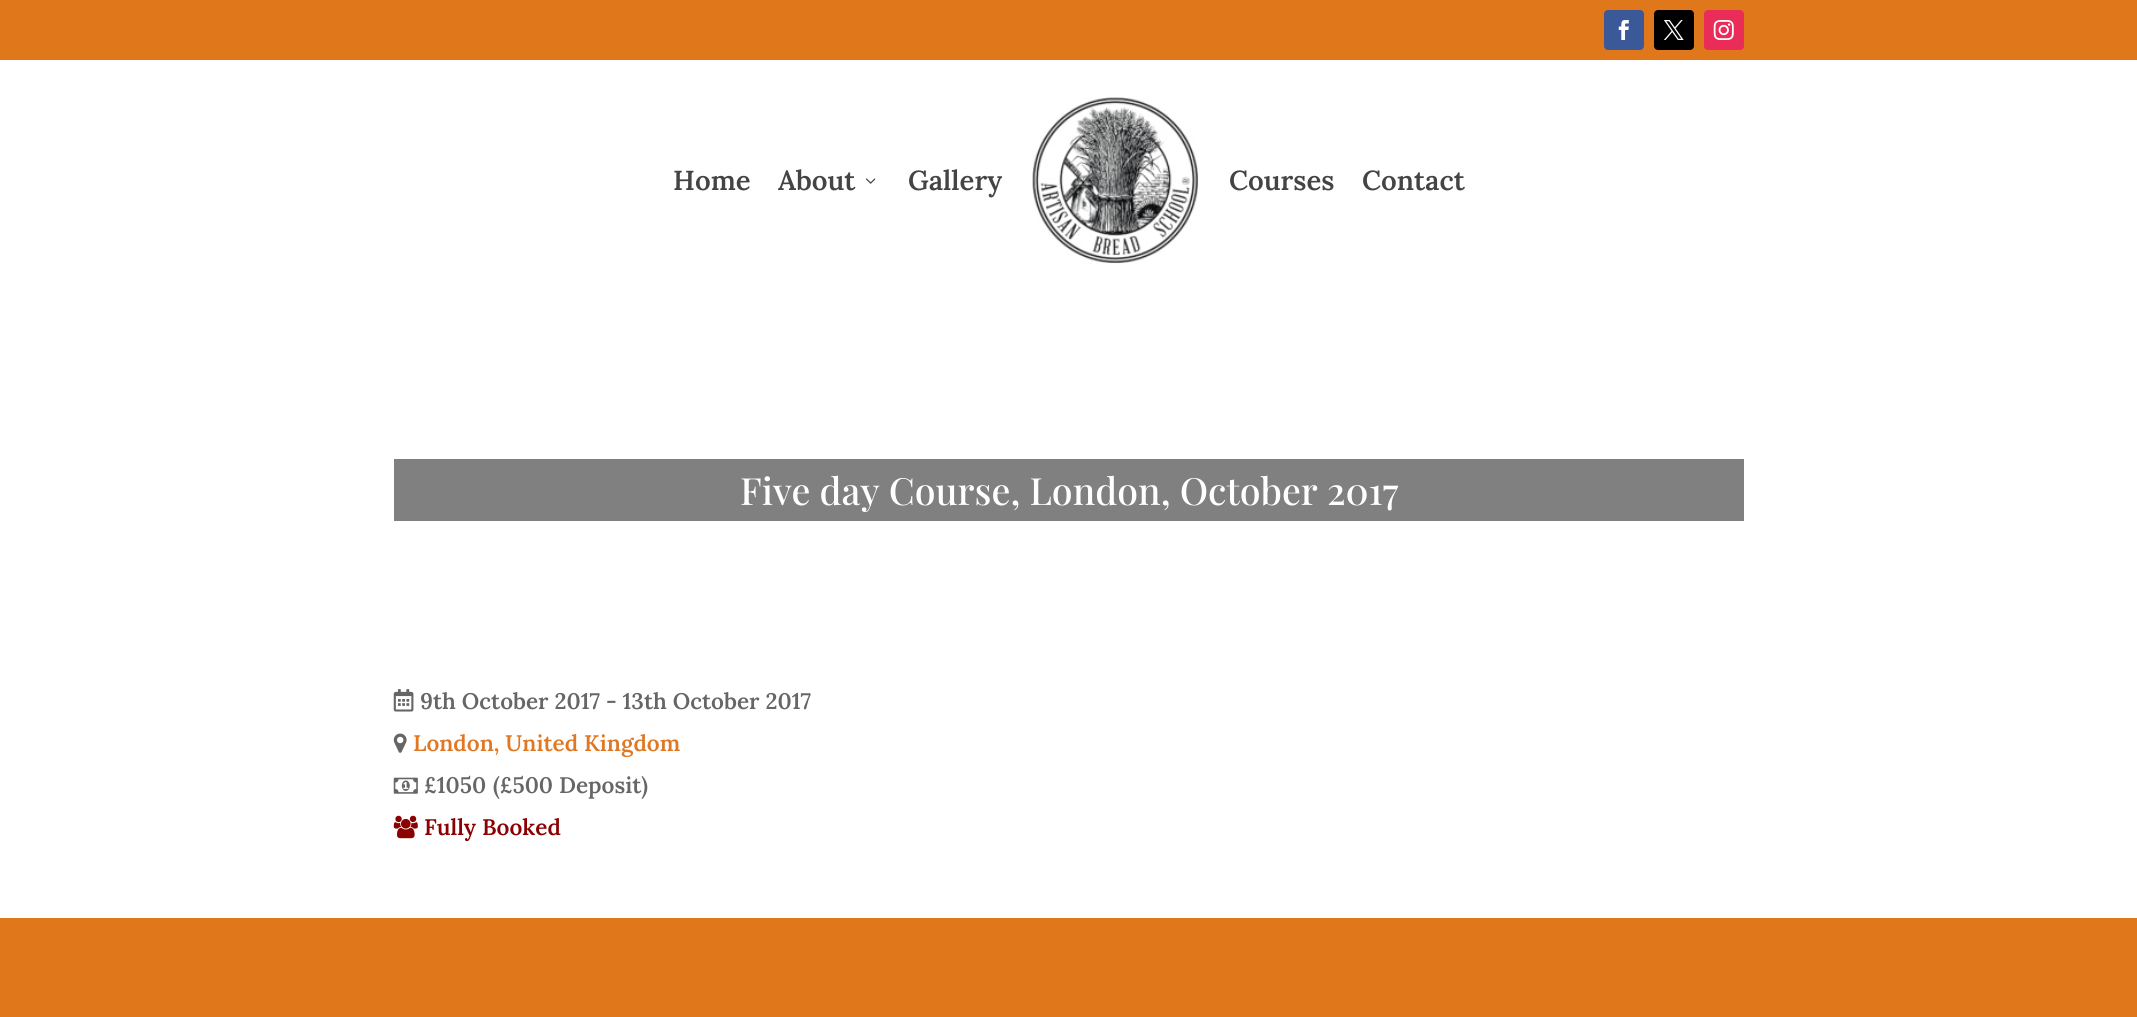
#include <cairo.h>
#include <math.h>
#include <stddef.h>

static cairo_t *c;
static void C(unsigned color){cairo_set_source_rgb(c, (color >> 16) / 255.0, (color >> 8 & 255) / 255.0, (color & 255) / 255.0);}
static void F(const char *family, double size, int italic, int bold){cairo_select_font_face(c, family, italic ? CAIRO_FONT_SLANT_ITALIC : CAIRO_FONT_SLANT_NORMAL,bold ? CAIRO_FONT_WEIGHT_BOLD : CAIRO_FONT_WEIGHT_NORMAL);cairo_set_font_size(c, size);}
static void T(double x, double y, const char *s){cairo_move_to(c, x, y);cairo_show_text(c, s);}
static void R(double x, double y, double w, double h){cairo_rectangle(c, x, y, w, h);cairo_fill(c);}
static void Q(double x, double y, double w, double h, double r){cairo_new_sub_path(c);cairo_arc(c, x + w - r, y + h - r, r, 0, M_PI / 2);cairo_arc(c, x + r, y + h - r, r, M_PI / 2, M_PI);cairo_arc(c, x + r, y + r, r, M_PI, 1.5 * M_PI);cairo_arc(c, x + w - r, y + r, r, 1.5 * M_PI, 2 * M_PI);cairo_close_path(c);}
static void I(const char *path, double x, double y, double w, double h){cairo_surface_t *image = cairo_image_surface_create_from_png(path);cairo_save(c);cairo_set_source_surface(c, image, x, y);cairo_rectangle(c, x, y, w, h);cairo_fill(c);cairo_restore(c);cairo_surface_destroy(image);}
int main(void) {
cairo_surface_t *surface = cairo_image_surface_create(CAIRO_FORMAT_RGB24, 2137, 1017);
c = cairo_create(surface);
cairo_font_options_t *options = cairo_font_options_create();
cairo_font_options_set_hint_metrics(options, CAIRO_HINT_METRICS_OFF);
cairo_font_options_set_hint_style(options, CAIRO_HINT_STYLE_NONE);
cairo_set_font_options(c, options);
cairo_set_miter_limit(c, 4);
C(0xffffff);
cairo_paint(c);
C(0xe0771b);
R(0,0,2137,60);
C(0x3b5998);
Q(1604,10,40,40,4);
cairo_fill(c);
I("1.png",1618,20,11,20);
C(0x000000);
Q(1654,10,40,40,4);
cairo_fill(c);
I("2.png",1664,20,20,20);
C(0xea2c59);
Q(1704,10,40,40,4);
cairo_fill(c);
I("3.png",1713,20,21,20);
F("Lora SemiBold",27.5,0,0);
C(0x444444);
T(673,190,"Home");
T(778,190,"About");
I("4.png",866,178,10,6);
T(908,190,"Gallery");
I("5.png",1032,97,167,167);
T(1229,190,"Courses");
T(1362,190,"Contact");
C(0x808080);
R(394,459,1350,62);
F("Playfair Display Medium",37.5,0,0);
C(0xffffff);
T(740,505,"Five day Course, London, October 2017");
I("6.png",393,689,21,23);
F("Lora SemiBold",22.5,0,0);
C(0x666666);
T(420,709,"9th October 2017 - 13th October 2017");
I("7.png",393,733,14,20);
C(0xe07722);
T(413,751,"London, United Kingdom");
I("8.png",393,777,25,17);
C(0x666666);
T(424,793,"£1050");
T(493,793,"(£500 Deposit)");
I("9.png",393,815,25,24);
C(0x8b0000);
T(424,835,"Fully Booked");
C(0xe0771b);
R(0,918,2137,99);
cairo_surface_write_to_png(surface, "o.png");
cairo_font_options_destroy(options);
cairo_destroy(c);
cairo_surface_destroy(surface);
return 0;
}
